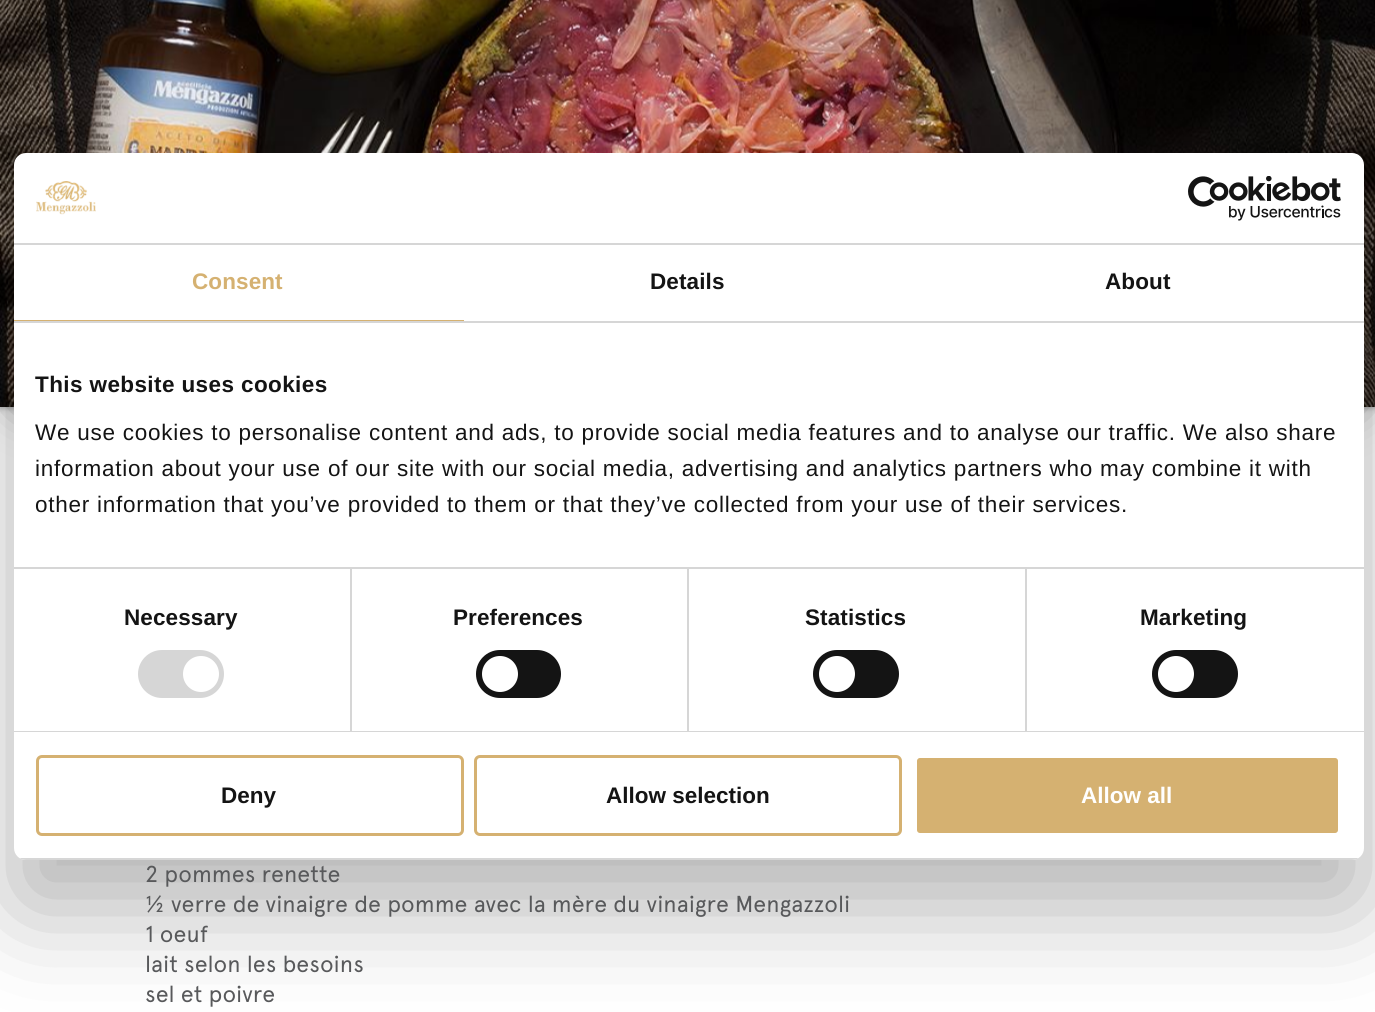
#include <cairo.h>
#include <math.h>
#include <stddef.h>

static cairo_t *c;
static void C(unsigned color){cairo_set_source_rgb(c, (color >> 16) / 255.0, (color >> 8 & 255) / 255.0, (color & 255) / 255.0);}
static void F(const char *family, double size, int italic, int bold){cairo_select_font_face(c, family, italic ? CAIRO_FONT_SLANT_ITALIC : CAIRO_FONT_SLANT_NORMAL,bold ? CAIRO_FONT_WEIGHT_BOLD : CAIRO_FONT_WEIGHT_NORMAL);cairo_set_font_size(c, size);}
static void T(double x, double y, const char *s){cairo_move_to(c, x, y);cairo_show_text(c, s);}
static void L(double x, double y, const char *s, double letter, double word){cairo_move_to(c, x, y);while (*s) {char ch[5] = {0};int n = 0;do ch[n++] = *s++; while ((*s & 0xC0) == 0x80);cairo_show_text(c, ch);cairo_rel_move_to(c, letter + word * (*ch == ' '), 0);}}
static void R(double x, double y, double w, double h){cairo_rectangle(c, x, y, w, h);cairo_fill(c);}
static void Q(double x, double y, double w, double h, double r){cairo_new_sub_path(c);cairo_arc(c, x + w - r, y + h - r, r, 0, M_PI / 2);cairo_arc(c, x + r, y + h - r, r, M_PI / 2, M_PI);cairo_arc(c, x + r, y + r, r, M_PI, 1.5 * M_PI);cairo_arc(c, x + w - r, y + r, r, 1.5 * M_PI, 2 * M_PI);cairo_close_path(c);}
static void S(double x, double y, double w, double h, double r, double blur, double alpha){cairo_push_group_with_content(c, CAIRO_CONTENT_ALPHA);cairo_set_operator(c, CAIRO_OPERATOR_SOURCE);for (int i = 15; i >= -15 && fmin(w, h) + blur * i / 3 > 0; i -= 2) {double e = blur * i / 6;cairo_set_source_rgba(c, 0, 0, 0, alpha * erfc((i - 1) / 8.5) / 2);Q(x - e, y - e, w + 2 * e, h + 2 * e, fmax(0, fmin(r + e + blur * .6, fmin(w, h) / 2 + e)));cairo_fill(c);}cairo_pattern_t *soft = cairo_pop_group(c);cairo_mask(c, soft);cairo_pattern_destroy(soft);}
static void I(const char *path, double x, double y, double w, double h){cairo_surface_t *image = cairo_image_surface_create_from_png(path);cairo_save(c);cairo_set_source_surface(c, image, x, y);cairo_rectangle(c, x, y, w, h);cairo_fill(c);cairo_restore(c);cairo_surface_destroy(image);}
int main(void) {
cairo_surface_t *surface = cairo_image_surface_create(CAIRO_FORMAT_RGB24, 1375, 1012);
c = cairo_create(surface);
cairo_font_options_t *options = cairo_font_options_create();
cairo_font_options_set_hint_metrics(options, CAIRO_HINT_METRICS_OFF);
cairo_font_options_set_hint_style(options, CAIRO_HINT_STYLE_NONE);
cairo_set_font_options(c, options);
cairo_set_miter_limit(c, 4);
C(0xffffff);
cairo_paint(c);
C(0x000000);
S(0,0,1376,408,0,3,.3);
S(15,-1,1346,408,15,22.5,.5);
I("3.png",0,0,1375,407);
S(14,201,1350,707,12,51,.3);
C(0xffffff);
Q(14,153,1350,707,12);
cairo_fill(c);
C(0xd6d6d6);
R(14,243,1350,2);
I("1.png",36,181,60,34);
I("2.png",1188,176,153,45);
R(14,321,1350,2);
C(0xd5b171);
R(14,320,450,1);
F("Liberation Sans",22.5,0,1);
L(192,289,"Consent",.1,0);
C(0x141414);
L(650,289,"Details",.1,0);
L(1105,289,"About",.1,0);
C(0xd6d6d6);
R(14,567,1350,2);
C(0x141414);
L(35,392,"This website uses cookies",.4,0);
F("Liberation Sans",22.5,0,0);
L(35,440,"We use cookies to personalise content and ads, to provide social media features and to analyse our traffic. We also share",.75,0);
L(35,476,"information about your use of our site with our social media, advertising and analytics partners who may combine it with",.75,0);
L(35,512,"other information that you’ve provided to them or that they’ve collected from your use of their services.",.75,0);
C(0xd6d6d6);
R(14,731,1350,1);
R(350,569,2,162);
F("Liberation Sans",22.5,0,1);
C(0x141414);
L(124,625,"Necessary",.1,0);
C(0xd6d6d6);
Q(138,650,86,48,24);
cairo_fill(c);
C(0xffffff);
cairo_arc(c,201,674,18,0,2 * M_PI);
cairo_fill(c);
C(0xd6d6d6);
R(687,569,2,162);
C(0x141414);
L(453,625,"Preferences",.1,0);
Q(476,650,85,48,24);
cairo_fill(c);
C(0xffffff);
cairo_arc(c,500,674,18,0,2 * M_PI);
cairo_fill(c);
C(0xd6d6d6);
R(1025,569,2,162);
C(0x141414);
L(805,625,"Statistics",.1,0);
Q(813,650,86,48,24);
cairo_fill(c);
C(0xffffff);
cairo_arc(c,837,674,18,0,2 * M_PI);
cairo_fill(c);
C(0x141414);
L(1140,625,"Marketing",.1,0);
Q(1152,650,86,48,24);
cairo_fill(c);
C(0xffffff);
cairo_arc(c,1176,674,18,0,2 * M_PI);
cairo_fill(c);
cairo_save(c);
Q(14,153,1350,707,12);
cairo_clip(c);
C(0xd6d6d6);
R(14,858,1350,2);
cairo_restore(c);
Q(37.5,756.5,425,78,4.5);
C(0xd5b171);
cairo_set_line_width(c,3);
cairo_stroke(c);
C(0x141414);
T(221,803,"Deny");
Q(475.5,756.5,425,78,4.5);
C(0xd5b171);
cairo_stroke(c);
C(0x141414);
T(606,803,"Allow selection");
C(0xd5b171);
Q(915.5,756.5,424,78,4.5);
cairo_fill_preserve(c);
C(0xffffff);
cairo_stroke(c);
T(1081,803,"Allow all");
F("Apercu",23.1,0,0);
C(0x58595b);
T(145,882,"2 pommes renette");
T(145,912,"½ verre de vinaigre de pomme avec la mère du vinaigre Mengazzoli");
T(145,942,"1 oeuf");
T(145,972,"lait selon les besoins");
T(145,1002,"sel et poivre");
cairo_surface_write_to_png(surface, "o.png");
cairo_font_options_destroy(options);
cairo_destroy(c);
cairo_surface_destroy(surface);
return 0;
}
